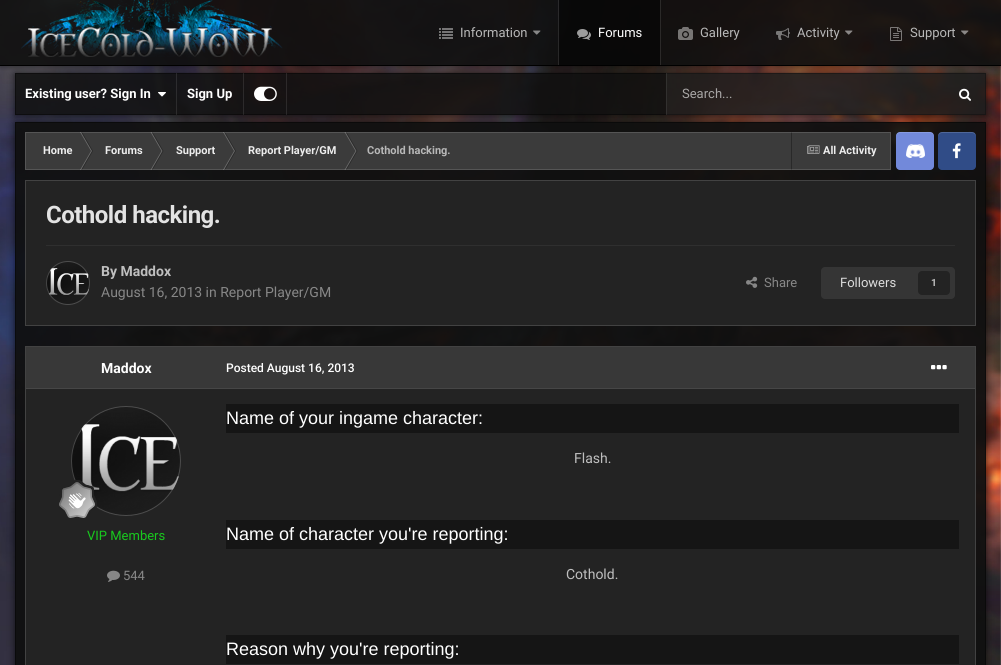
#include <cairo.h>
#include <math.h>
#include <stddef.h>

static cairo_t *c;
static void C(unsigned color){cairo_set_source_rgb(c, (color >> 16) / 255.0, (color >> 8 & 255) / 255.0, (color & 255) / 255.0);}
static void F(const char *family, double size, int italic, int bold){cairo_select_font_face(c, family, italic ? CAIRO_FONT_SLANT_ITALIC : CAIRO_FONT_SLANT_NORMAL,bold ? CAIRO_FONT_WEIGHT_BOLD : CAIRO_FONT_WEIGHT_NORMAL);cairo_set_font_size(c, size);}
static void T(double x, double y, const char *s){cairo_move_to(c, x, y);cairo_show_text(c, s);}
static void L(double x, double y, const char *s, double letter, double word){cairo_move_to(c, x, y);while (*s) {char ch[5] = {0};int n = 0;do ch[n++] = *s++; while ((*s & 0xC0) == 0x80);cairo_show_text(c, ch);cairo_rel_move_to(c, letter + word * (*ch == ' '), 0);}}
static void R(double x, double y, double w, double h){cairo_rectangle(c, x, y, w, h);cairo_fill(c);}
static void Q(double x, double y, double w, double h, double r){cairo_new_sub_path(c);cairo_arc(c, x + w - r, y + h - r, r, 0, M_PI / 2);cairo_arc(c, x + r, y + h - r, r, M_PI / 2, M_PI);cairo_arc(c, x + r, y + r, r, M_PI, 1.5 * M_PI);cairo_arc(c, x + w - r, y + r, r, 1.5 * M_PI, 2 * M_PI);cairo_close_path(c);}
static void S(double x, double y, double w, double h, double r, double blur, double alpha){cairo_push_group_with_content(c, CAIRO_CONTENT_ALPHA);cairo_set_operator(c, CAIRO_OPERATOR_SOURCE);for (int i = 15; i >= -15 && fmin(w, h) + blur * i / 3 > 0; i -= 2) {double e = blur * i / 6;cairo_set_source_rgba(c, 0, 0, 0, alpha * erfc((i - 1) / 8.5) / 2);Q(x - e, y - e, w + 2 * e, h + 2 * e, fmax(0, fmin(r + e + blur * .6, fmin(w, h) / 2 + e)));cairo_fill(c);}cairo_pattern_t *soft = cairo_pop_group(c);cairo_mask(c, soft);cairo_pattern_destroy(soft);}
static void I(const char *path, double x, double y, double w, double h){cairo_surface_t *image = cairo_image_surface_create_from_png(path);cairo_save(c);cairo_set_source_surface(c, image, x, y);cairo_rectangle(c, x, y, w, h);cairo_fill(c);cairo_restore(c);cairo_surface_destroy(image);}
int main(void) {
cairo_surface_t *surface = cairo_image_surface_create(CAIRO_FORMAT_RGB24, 1001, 665);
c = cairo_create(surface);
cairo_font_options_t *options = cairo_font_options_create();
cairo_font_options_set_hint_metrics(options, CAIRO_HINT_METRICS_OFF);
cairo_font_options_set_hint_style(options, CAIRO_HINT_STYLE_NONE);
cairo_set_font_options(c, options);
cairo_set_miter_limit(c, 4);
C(0xffffff);
cairo_paint(c);
I("1.png",0,0,1001,665);
cairo_save(c);
cairo_set_fill_rule(c,CAIRO_FILL_RULE_EVEN_ODD);
cairo_new_path(c);
cairo_move_to(c,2,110);
cairo_line_to(c,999,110);
cairo_line_to(c,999,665);
cairo_line_to(c,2,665);
cairo_close_path(c);
cairo_move_to(c,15,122);
cairo_line_to(c,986,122);
cairo_line_to(c,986,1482);
cairo_line_to(c,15,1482);
cairo_close_path(c);
cairo_clip(c);
C(0x000000);
S(15,123,971,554,0,4,.7);
cairo_restore(c);
cairo_set_source_rgba(c,0.059,0.059,0.059,0.93);
R(15,122,971,543);
cairo_rectangle(c,15.5,122.5,970,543);
cairo_set_source_rgba(c,0,0,0,0.4);
cairo_set_line_width(c,1);
cairo_stroke(c);
cairo_save(c);
cairo_set_fill_rule(c,CAIRO_FILL_RULE_EVEN_ODD);
cairo_new_path(c);
cairo_move_to(c,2,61);
cairo_line_to(c,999,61);
cairo_line_to(c,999,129);
cairo_line_to(c,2,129);
cairo_close_path(c);
cairo_move_to(c,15,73);
cairo_line_to(c,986,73);
cairo_line_to(c,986,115);
cairo_line_to(c,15,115);
cairo_close_path(c);
cairo_clip(c);
C(0x000000);
S(15,74,971,42,0,4,.7);
cairo_restore(c);
cairo_set_source_rgba(c,0.059,0.059,0.059,0.84);
R(15,73,971,42);
cairo_rectangle(c,15.5,73.5,970,41);
cairo_set_source_rgba(c,0,0,0,0.4);
cairo_stroke(c);
cairo_set_source_rgba(c,1,1,1,0.1);
R(176,73,1,42);
R(243,73,1,42);
R(286,73,1,42);
cairo_set_source_rgba(c,1,1,1,0.05);
R(666,73,320,42);
cairo_set_source_rgba(c,1,1,1,0.08);
R(666,73,1,42);
cairo_save(c);
cairo_rectangle(c,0,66,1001,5);
cairo_clip(c);
C(0x000000);
S(0,1,1001,66,0,2.5,.4);
cairo_restore(c);
cairo_set_source_rgba(c,0.059,0.059,0.059,0.9);
R(0,0,1001,65);
C(0x000000);
R(0,65,1001,1);
I("2.png",21,0,262,57);
I("3.png",439,28,14,11);
F("Roboto",13,0,0);
C(0xb8b8b8);
T(460,37,"Information");
I("4.png",533,30,8,5);
cairo_set_source_rgba(c,1,1,1,0.1);
R(558,0,1,65);
C(0x2b2928);
R(660,0,1,65);
cairo_set_source_rgba(c,0,0,0,0.5);
R(559,0,101,65);
I("5.png",577,29,14,11);
C(0xffffff);
T(598,37,"Forums");
I("6.png",678,27,15,13);
C(0xb8b8b8);
T(700,37,"Gallery");
I("7.png",776,28,14,12);
T(797,37,"Activity");
I("8.png",845,30,8,5);
I("9.png",890,27,12,14);
T(910,37,"Support");
I("10.png",961,30,8,5);
F("Roboto",13,0,1);
C(0xffffff);
T(25,98,"Existing user? Sign In");
I("11.png",158,92,8,5);
T(187,98,"Sign Up");
I("12.png",254,86,23,15);
F("Roboto",13,0,0);
C(0xa8a6a5);
T(682,98,"Search...");
I("13.png",959,88,12,13);
C(0x3b3b3b);
R(25,132,866,38);
C(0x6c6c6c);
cairo_new_path(c);
cairo_move_to(c,80,132);
cairo_line_to(c,81,132);
cairo_line_to(c,92,151);
cairo_line_to(c,91,151);
cairo_close_path(c);
cairo_fill(c);
cairo_set_source_rgba(c,0,0,0,0.3);
cairo_new_path(c);
cairo_move_to(c,81,132);
cairo_line_to(c,82,132);
cairo_line_to(c,93,151);
cairo_line_to(c,92,151);
cairo_close_path(c);
cairo_fill(c);
C(0x6c6c6c);
cairo_new_path(c);
cairo_move_to(c,80,170);
cairo_line_to(c,81,170);
cairo_line_to(c,92,151);
cairo_line_to(c,91,151);
cairo_close_path(c);
cairo_fill(c);
cairo_set_source_rgba(c,0,0,0,0.3);
cairo_new_path(c);
cairo_move_to(c,81,170);
cairo_line_to(c,82,170);
cairo_line_to(c,93,151);
cairo_line_to(c,92,151);
cairo_close_path(c);
cairo_fill(c);
C(0x6c6c6c);
cairo_new_path(c);
cairo_move_to(c,150.5,132);
cairo_line_to(c,151.5,132);
cairo_line_to(c,162.5,151);
cairo_line_to(c,161.5,151);
cairo_close_path(c);
cairo_fill(c);
cairo_set_source_rgba(c,0,0,0,0.3);
cairo_new_path(c);
cairo_move_to(c,151.5,132);
cairo_line_to(c,152.5,132);
cairo_line_to(c,163.5,151);
cairo_line_to(c,162.5,151);
cairo_close_path(c);
cairo_fill(c);
C(0x6c6c6c);
cairo_new_path(c);
cairo_move_to(c,150.5,170);
cairo_line_to(c,151.5,170);
cairo_line_to(c,162.5,151);
cairo_line_to(c,161.5,151);
cairo_close_path(c);
cairo_fill(c);
cairo_set_source_rgba(c,0,0,0,0.3);
cairo_new_path(c);
cairo_move_to(c,151.5,170);
cairo_line_to(c,152.5,170);
cairo_line_to(c,163.5,151);
cairo_line_to(c,162.5,151);
cairo_close_path(c);
cairo_fill(c);
C(0x6c6c6c);
cairo_new_path(c);
cairo_move_to(c,223,132);
cairo_line_to(c,224,132);
cairo_line_to(c,235,151);
cairo_line_to(c,234,151);
cairo_close_path(c);
cairo_fill(c);
cairo_set_source_rgba(c,0,0,0,0.3);
cairo_new_path(c);
cairo_move_to(c,224,132);
cairo_line_to(c,225,132);
cairo_line_to(c,236,151);
cairo_line_to(c,235,151);
cairo_close_path(c);
cairo_fill(c);
C(0x6c6c6c);
cairo_new_path(c);
cairo_move_to(c,223,170);
cairo_line_to(c,224,170);
cairo_line_to(c,235,151);
cairo_line_to(c,234,151);
cairo_close_path(c);
cairo_fill(c);
cairo_set_source_rgba(c,0,0,0,0.3);
cairo_new_path(c);
cairo_move_to(c,224,170);
cairo_line_to(c,225,170);
cairo_line_to(c,236,151);
cairo_line_to(c,235,151);
cairo_close_path(c);
cairo_fill(c);
C(0x6c6c6c);
cairo_new_path(c);
cairo_move_to(c,344.5,132);
cairo_line_to(c,345.5,132);
cairo_line_to(c,356.5,151);
cairo_line_to(c,355.5,151);
cairo_close_path(c);
cairo_fill(c);
cairo_set_source_rgba(c,0,0,0,0.3);
cairo_new_path(c);
cairo_move_to(c,345.5,132);
cairo_line_to(c,346.5,132);
cairo_line_to(c,357.5,151);
cairo_line_to(c,356.5,151);
cairo_close_path(c);
cairo_fill(c);
C(0x6c6c6c);
cairo_new_path(c);
cairo_move_to(c,344.5,170);
cairo_line_to(c,345.5,170);
cairo_line_to(c,356.5,151);
cairo_line_to(c,355.5,151);
cairo_close_path(c);
cairo_fill(c);
cairo_set_source_rgba(c,0,0,0,0.3);
cairo_new_path(c);
cairo_move_to(c,345.5,170);
cairo_line_to(c,346.5,170);
cairo_line_to(c,357.5,151);
cairo_line_to(c,356.5,151);
cairo_close_path(c);
cairo_fill(c);
C(0x292929);
R(791,132,1,38);
I("14.png",807,145,13,9);
cairo_rectangle(c,25.5,132.5,865,37);
cairo_set_source_rgba(c,0.749,0.749,0.749,0.2);
cairo_stroke(c);
F("Roboto",11,0,1);
C(0xededed);
T(43,154,"Home");
T(105,154,"Forums");
T(176,154,"Support");
T(248,154,"Report Player/GM");
C(0xb8b8b8);
T(367,154,"Cothold hacking.");
C(0xededed);
T(823,154,"All Activity");
C(0x7289da);
Q(896,132,38,38,4);
cairo_fill(c);
cairo_set_source_rgba(c,1,1,1,0.15);
cairo_new_path(c);
cairo_move_to(c,900,133);
cairo_curve_to(c,898,133,896,135,896,137);
cairo_curve_to(c,896,131,900.5,132,905,132);
cairo_line_to(c,925,132);
cairo_curve_to(c,929.5,132,934,131,934,137);
cairo_curve_to(c,934,135,932,133,930,133);
cairo_close_path(c);
cairo_fill(c);
I("15.png",906,144,19,14);
C(0x304c87);
Q(938,132,38,38,4);
cairo_fill(c);
cairo_set_source_rgba(c,1,1,1,0.15);
cairo_new_path(c);
cairo_move_to(c,942,133);
cairo_curve_to(c,940,133,938,135,938,137);
cairo_curve_to(c,938,131,942.5,132,947,132);
cairo_line_to(c,967,132);
cairo_curve_to(c,971.5,132,976,131,976,137);
cairo_curve_to(c,976,135,974,133,972,133);
cairo_close_path(c);
cairo_fill(c);
I("16.png",952,143,9,16);
C(0x232323);
cairo_rectangle(c,25.5,180.5,950,145);
cairo_fill_preserve(c);
C(0x424242);
cairo_stroke(c);
F("Roboto",24,0,1);
C(0xe3e3e3);
L(46,223,"Cothold hacking.",-.5,0);
C(0x2f2f2f);
R(46,245,909,1);
I("17.png",46,261,44,44);
cairo_arc(c,68,283,21.5,0,2 * M_PI);
cairo_set_source_rgba(c,0.749,0.749,0.749,0.3);
cairo_stroke(c);
F("Roboto",14,0,1);
C(0xbfbfbf);
T(101,276,"By Maddox");
F("Roboto",14,0,0);
C(0x878787);
T(101,297,"August 16, 2013 in Report Player/GM");
I("18.png",746,276,12,12);
F("Roboto",13,0,0);
T(764,287,"Share");
C(0x353535);
Q(821,267,134,32,4);
cairo_fill(c);
C(0xdddddd);
T(840,287,"Followers");
C(0x232323);
Q(918,271,32,24,4);
cairo_fill(c);
F("Roboto",10,0,1);
C(0xbfbfbf);
T(931,286,"1");
C(0x232323);
R(26,389,949,276);
cairo_rectangle(c,25.5,346.5,950,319);
C(0x424242);
cairo_stroke(c);
C(0x383838);
R(26,347,949,41);
C(0x464646);
R(26,388,949,1);
F("Roboto",14,0,1);
C(0xffffff);
T(101,373,"Maddox");
I("19.png",71,406,110,110);
cairo_arc(c,126,461,54.5,0,2 * M_PI);
cairo_set_source_rgba(c,0.749,0.749,0.749,0.3);
cairo_stroke(c);
I("20.png",59,480,38,38);
F("Roboto",13,0,0);
C(0x18c91e);
T(87,540,"VIP Members");
I("21.png",107,570,13,12);
C(0x878787);
T(123,580,"544");
F("Roboto Medium",12,0,0);
C(0xffffff);
T(226,372,"Posted August 16, 2013");
I("22.png",931,365,16,5);
C(0x151515);
R(226,404,733,29);
F("Liberation Sans",18,0,0);
C(0xffffff);
T(226,424,"Name of your ingame character:");
F("Roboto",14,0,0);
C(0xbfbfbf);
T(574,463,"Flash.");
C(0x151515);
R(226,520,733,29);
F("Liberation Sans",18,0,0);
C(0xffffff);
T(226,540,"Name of character you're reporting:");
F("Roboto",14,0,0);
C(0xbfbfbf);
T(566,579,"Cothold.");
C(0x151515);
R(226,635,733,29);
F("Liberation Sans",18,0,0);
C(0xffffff);
T(226,655,"Reason why you're reporting:");
cairo_surface_write_to_png(surface, "o.png");
cairo_font_options_destroy(options);
cairo_destroy(c);
cairo_surface_destroy(surface);
return 0;
}
